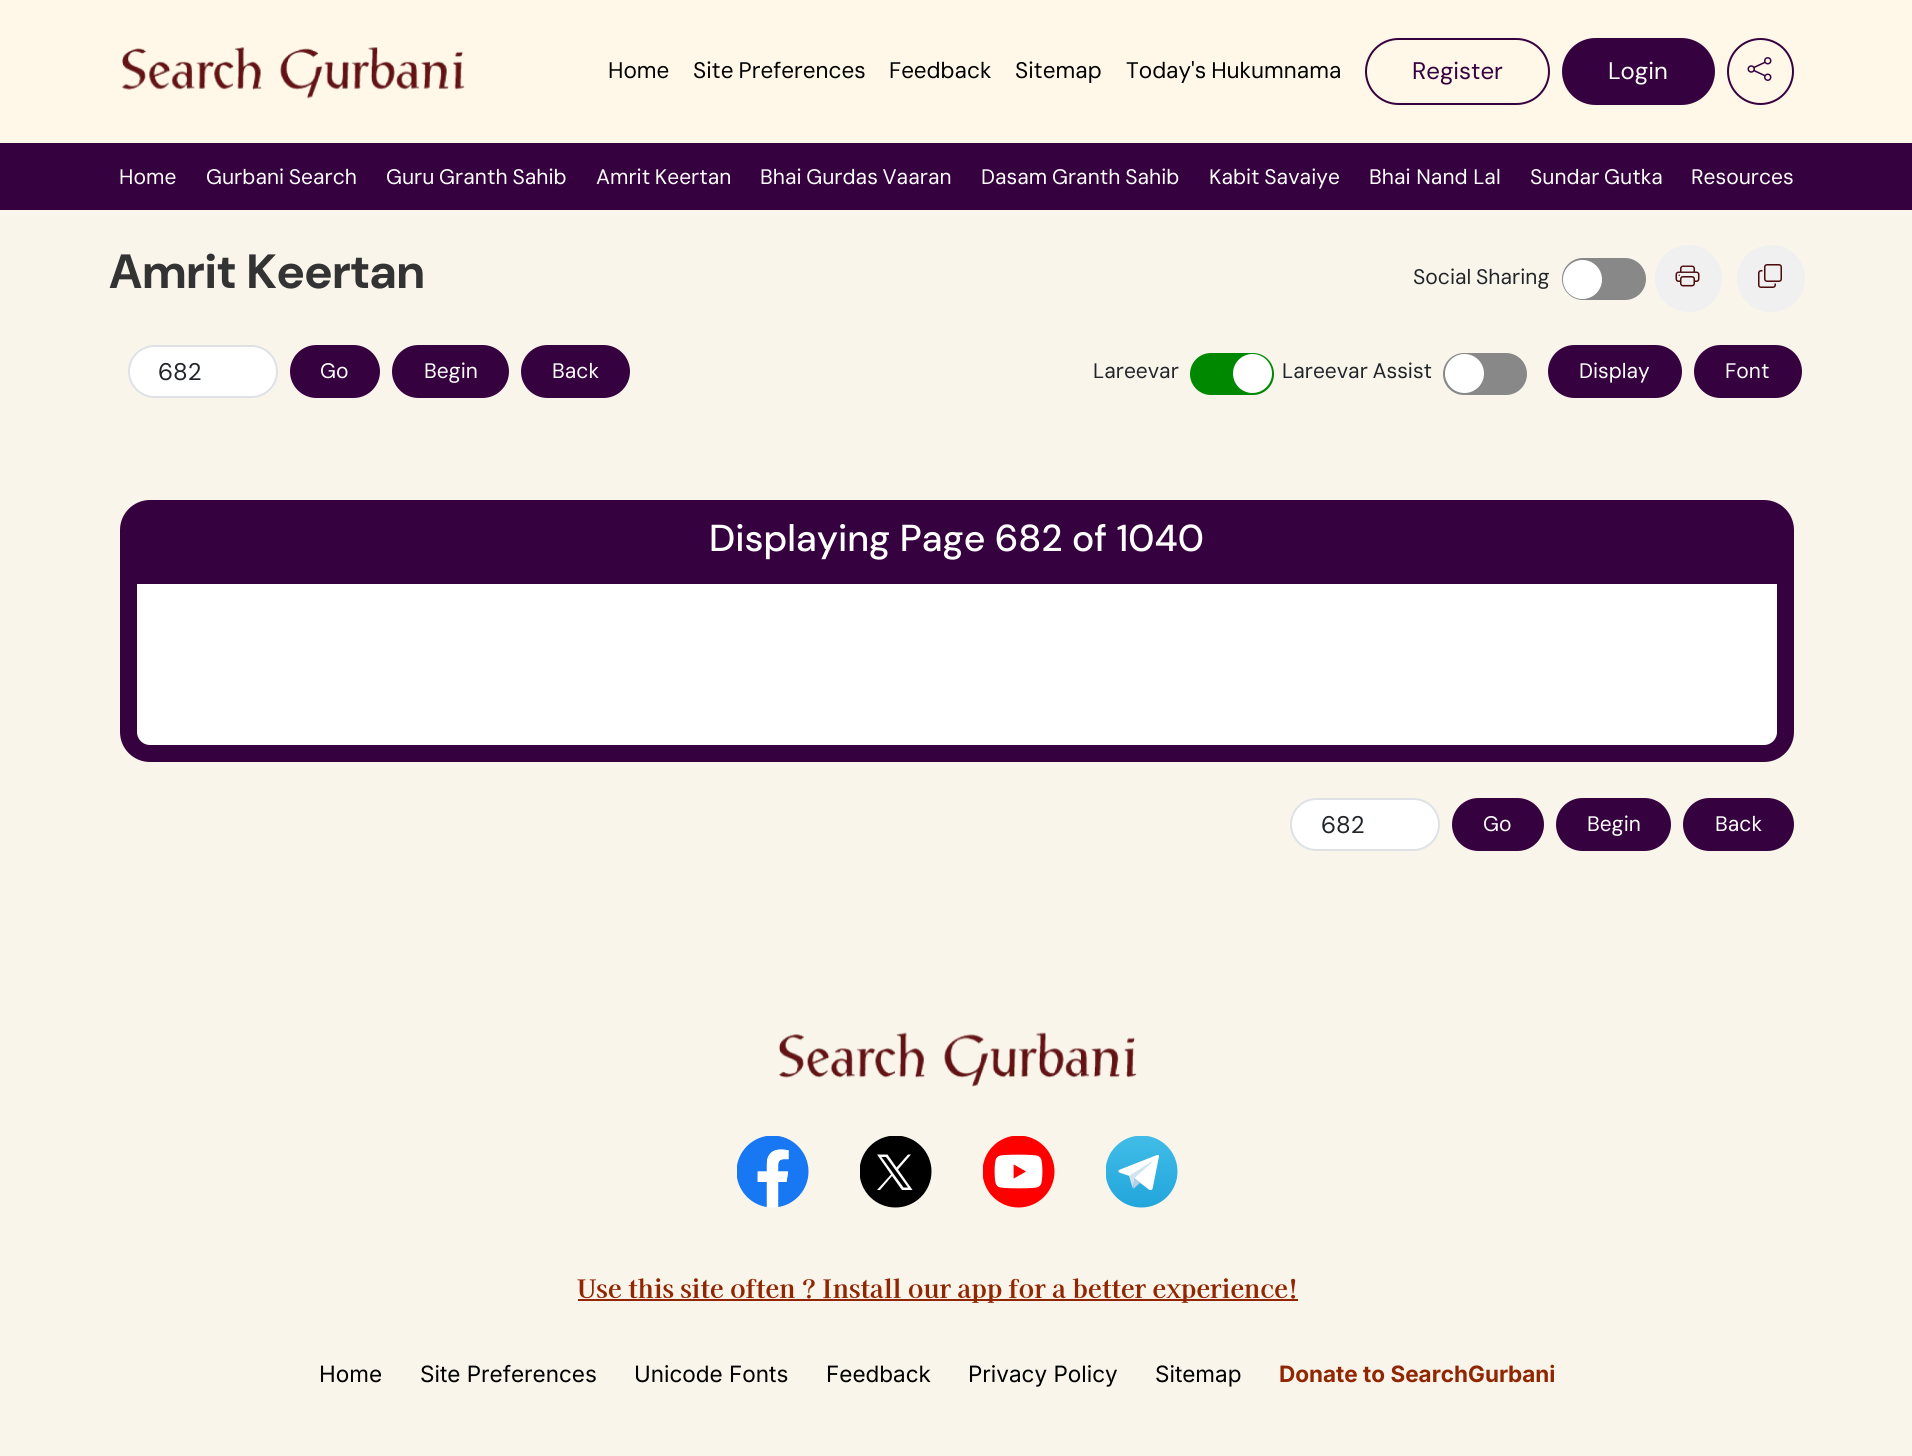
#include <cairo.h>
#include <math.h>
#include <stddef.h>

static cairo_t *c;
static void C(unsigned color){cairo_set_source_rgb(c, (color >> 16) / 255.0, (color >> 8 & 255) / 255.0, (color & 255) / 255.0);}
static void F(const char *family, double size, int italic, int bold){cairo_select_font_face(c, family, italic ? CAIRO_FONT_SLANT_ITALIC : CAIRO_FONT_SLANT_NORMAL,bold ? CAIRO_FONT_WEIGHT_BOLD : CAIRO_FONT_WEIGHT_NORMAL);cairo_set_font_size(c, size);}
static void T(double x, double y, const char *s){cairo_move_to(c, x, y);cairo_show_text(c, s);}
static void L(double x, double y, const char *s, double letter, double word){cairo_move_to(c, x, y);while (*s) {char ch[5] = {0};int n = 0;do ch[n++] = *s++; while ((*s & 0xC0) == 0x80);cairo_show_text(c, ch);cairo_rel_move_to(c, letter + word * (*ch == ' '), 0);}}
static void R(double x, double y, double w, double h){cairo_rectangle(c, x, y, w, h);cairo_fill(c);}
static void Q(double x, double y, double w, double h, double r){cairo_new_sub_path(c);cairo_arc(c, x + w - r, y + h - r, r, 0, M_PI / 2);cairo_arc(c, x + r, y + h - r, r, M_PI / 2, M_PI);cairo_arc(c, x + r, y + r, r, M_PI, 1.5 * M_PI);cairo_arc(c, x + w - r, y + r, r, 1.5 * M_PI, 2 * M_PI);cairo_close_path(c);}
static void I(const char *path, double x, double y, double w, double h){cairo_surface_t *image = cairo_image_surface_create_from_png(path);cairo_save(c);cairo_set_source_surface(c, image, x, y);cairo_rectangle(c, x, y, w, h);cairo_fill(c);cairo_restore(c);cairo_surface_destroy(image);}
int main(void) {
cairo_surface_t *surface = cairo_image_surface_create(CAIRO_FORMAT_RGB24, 1912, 1456);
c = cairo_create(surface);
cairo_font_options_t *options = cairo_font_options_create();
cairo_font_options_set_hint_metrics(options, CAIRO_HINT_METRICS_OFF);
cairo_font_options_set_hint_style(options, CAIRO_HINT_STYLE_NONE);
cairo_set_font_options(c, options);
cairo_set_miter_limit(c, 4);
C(0xf9f5eb);
cairo_paint(c);
C(0xfff8e8);
R(0,0,1912,143);
I("1.png",121,47,344,52);
F("DM Sans",22.5,0,0);
C(0x000000);
T(608,78,"Home");
L(693,78,"Site Preferences",0,-1);
T(889,78,"Feedback");
T(1015,78,"Sitemap");
L(1126,78,"Today's Hukumnama",0,-1);
Q(1366,39,183,65,32.5);
C(0x36013f);
cairo_stroke(c);
F("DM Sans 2",24,0,0);
T(1412,79,"Register");
Q(1563,39,151,65,32.5);
cairo_fill_preserve(c);
cairo_stroke(c);
C(0xffffff);
T(1608,79,"Login");
cairo_new_path(c);
cairo_arc(c,1760.5,71.5,32.5,0,2 * M_PI);
C(0x36013f);
cairo_stroke(c);
I("2.png",1747,57,25,24);
R(0,143,1912,67);
F("DM Sans",21,0,0);
C(0xffffff);
T(119,184,"Home");
L(206,184,"Gurbani Search",0,-1);
L(386,184,"Guru Granth Sahib",0,-1);
L(596,184,"Amrit Keertan",0,-1);
L(760,184,"Bhai Gurdas Vaaran",0,-1);
L(981,184,"Dasam Granth Sahib",0,-1);
L(1209,184,"Kabit Savaiye",0,-1);
T(1369,184,"Bhai Nand Lal");
L(1530,184,"Sundar Gutka",0,-1);
T(1691,184,"Resources");
F("DM Sans",48,0,1);
C(0x333333);
T(109,288,"Amrit Keertan");
F("DM Sans",21,0,0);
C(0x212529);
L(1413,284,"Social Sharing",0,-1);
C(0x888888);
Q(1562,258,84,42,21);
cairo_fill(c);
C(0xffffff);
cairo_arc(c,1582.5,279.5,19.5,0,2 * M_PI);
cairo_fill(c);
C(0xf0f0f0);
cairo_arc(c,1688.5,278.5,33.5,0,2 * M_PI);
cairo_fill(c);
I("3.png",1675,265,25,22);
Q(1737,245,68,67,33.5);
cairo_fill(c);
I("4.png",1758,264,24,24);
C(0xffffff);
Q(129,346,148,51,25.5);
cairo_fill_preserve(c);
C(0xdee2e6);
cairo_stroke(c);
F("DM Sans 2",24,0,0);
C(0x212529);
T(158,380,"682");
C(0x36013f);
Q(291,346,88,51,25.5);
cairo_fill_preserve(c);
cairo_stroke(c);
F("DM Sans",21,0,0);
C(0xffffff);
T(320,378,"Go");
C(0x36013f);
Q(393,346,115,51,25.5);
cairo_fill_preserve(c);
cairo_stroke(c);
C(0xffffff);
T(424,378,"Begin");
C(0x36013f);
Q(522,346,107,51,25.5);
cairo_fill_preserve(c);
cairo_stroke(c);
C(0xffffff);
T(552,378,"Back");
C(0x212529);
T(1093,378,"Lareevar");
C(0x008800);
Q(1190,353,84,42,21);
cairo_fill(c);
C(0xffffff);
cairo_arc(c,1252.5,373.5,19.5,0,2 * M_PI);
cairo_fill(c);
C(0x212529);
L(1282,378,"Lareevar Assist",0,-1);
C(0x888888);
Q(1443,353,84,42,21);
cairo_fill(c);
C(0xffffff);
cairo_arc(c,1464.5,373.5,19.5,0,2 * M_PI);
cairo_fill(c);
C(0x36013f);
Q(1549,346,132,51,25.5);
cairo_fill_preserve(c);
cairo_stroke(c);
C(0xffffff);
T(1579,378,"Display");
C(0x36013f);
Q(1695,346,106,51,25.5);
cairo_fill_preserve(c);
cairo_stroke(c);
C(0xffffff);
T(1725,378,"Font");
Q(128.5,508.5,1657,245,21.5);
cairo_fill_preserve(c);
C(0x36013f);
cairo_set_line_width(c,17);
cairo_stroke(c);
R(137,517,1640,67);
F("DM Sans Medium",37.5,0,0);
C(0xffffff);
T(709,551,"Displaying Page 682 of 1040");
Q(1291,799,148,51,25.5);
cairo_fill_preserve(c);
C(0xdee2e6);
cairo_set_line_width(c,2);
cairo_stroke(c);
F("DM Sans 2",24,0,0);
C(0x212529);
T(1321,833,"682");
C(0x36013f);
Q(1453,799,90,51,25.5);
cairo_fill_preserve(c);
cairo_stroke(c);
F("DM Sans",21,0,0);
C(0xffffff);
T(1483,831,"Go");
C(0x36013f);
Q(1557,799,113,51,25.5);
cairo_fill_preserve(c);
cairo_stroke(c);
C(0xffffff);
T(1587,831,"Begin");
C(0x36013f);
Q(1684,799,109,51,25.5);
cairo_fill_preserve(c);
cairo_stroke(c);
C(0xffffff);
T(1715,831,"Back");
I("5.png",778,1032,359,55);
I("6.png",737,1136,72,72);
cairo_save(c);
cairo_rectangle(c,860,1136,72,72);
cairo_clip(c);
C(0x000000);
cairo_arc(c,895.5,1171.5,36,0,2 * M_PI);
cairo_fill(c);
cairo_restore(c);
cairo_new_path(c);
cairo_move_to(c,898,1169.5);
cairo_line_to(c,911,1154.5);
cairo_line_to(c,908,1154.5);
cairo_line_to(c,896.5,1167.5);
cairo_line_to(c,887.5,1154.5);
cairo_line_to(c,877,1154.5);
cairo_line_to(c,891,1174.5);
cairo_line_to(c,877,1190);
cairo_line_to(c,880,1190);
cairo_line_to(c,892,1176);
cairo_line_to(c,902,1190);
cairo_line_to(c,912.5,1190);
cairo_close_path(c);
cairo_move_to(c,894,1174.5);
cairo_line_to(c,881.5,1157);
cairo_line_to(c,886,1157);
cairo_line_to(c,908,1187.5);
cairo_line_to(c,903.5,1187.5);
cairo_close_path(c);
cairo_fill(c);
I("7.png",983,1136,72,72);
I("8.png",1106,1136,72,72);
C(0x902602);
R(578,1299,720,2);
F("Kaisei Decol",25.5,0,1);
T(577,1298,"Use this site often ? Install our app for a better experience!");
F("Inter",22.5,0,0);
C(0x000000);
T(319,1382,"Home");
T(420,1382,"Site Preferences");
T(634,1382,"Unicode Fonts");
T(826,1382,"Feedback");
T(968,1382,"Privacy Policy");
T(1155,1382,"Sitemap");
F("Inter",22.5,0,1);
C(0x902602);
T(1279,1382,"Donate to SearchGurbani");
cairo_surface_write_to_png(surface, "o.png");
cairo_font_options_destroy(options);
cairo_destroy(c);
cairo_surface_destroy(surface);
return 0;
}
